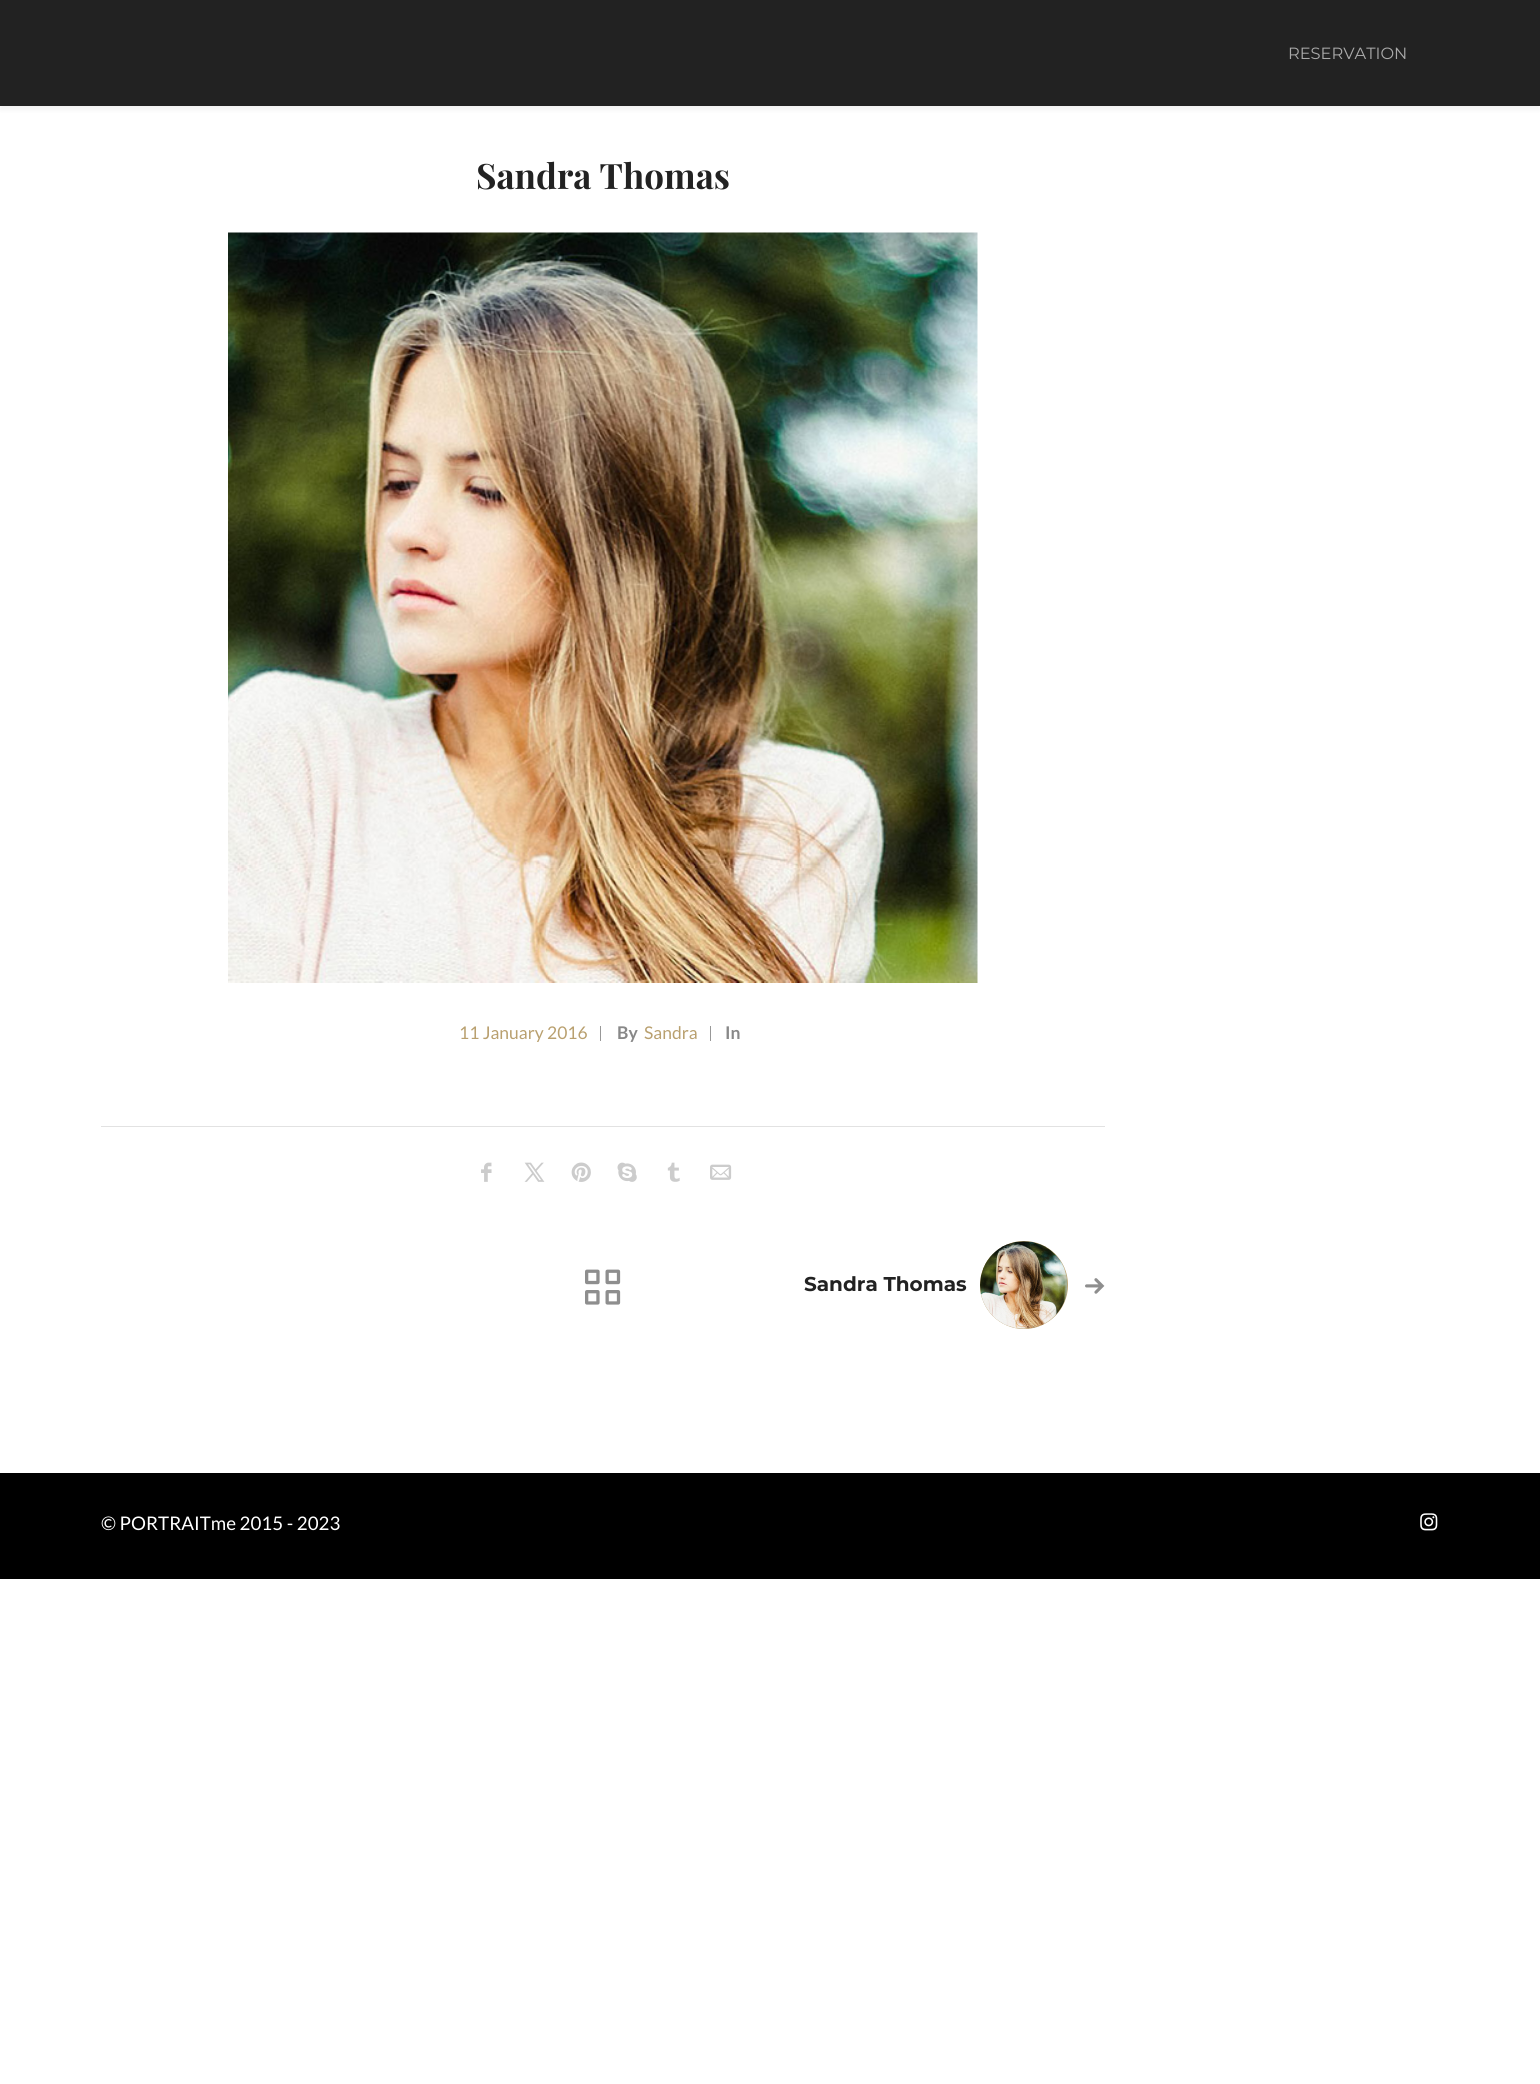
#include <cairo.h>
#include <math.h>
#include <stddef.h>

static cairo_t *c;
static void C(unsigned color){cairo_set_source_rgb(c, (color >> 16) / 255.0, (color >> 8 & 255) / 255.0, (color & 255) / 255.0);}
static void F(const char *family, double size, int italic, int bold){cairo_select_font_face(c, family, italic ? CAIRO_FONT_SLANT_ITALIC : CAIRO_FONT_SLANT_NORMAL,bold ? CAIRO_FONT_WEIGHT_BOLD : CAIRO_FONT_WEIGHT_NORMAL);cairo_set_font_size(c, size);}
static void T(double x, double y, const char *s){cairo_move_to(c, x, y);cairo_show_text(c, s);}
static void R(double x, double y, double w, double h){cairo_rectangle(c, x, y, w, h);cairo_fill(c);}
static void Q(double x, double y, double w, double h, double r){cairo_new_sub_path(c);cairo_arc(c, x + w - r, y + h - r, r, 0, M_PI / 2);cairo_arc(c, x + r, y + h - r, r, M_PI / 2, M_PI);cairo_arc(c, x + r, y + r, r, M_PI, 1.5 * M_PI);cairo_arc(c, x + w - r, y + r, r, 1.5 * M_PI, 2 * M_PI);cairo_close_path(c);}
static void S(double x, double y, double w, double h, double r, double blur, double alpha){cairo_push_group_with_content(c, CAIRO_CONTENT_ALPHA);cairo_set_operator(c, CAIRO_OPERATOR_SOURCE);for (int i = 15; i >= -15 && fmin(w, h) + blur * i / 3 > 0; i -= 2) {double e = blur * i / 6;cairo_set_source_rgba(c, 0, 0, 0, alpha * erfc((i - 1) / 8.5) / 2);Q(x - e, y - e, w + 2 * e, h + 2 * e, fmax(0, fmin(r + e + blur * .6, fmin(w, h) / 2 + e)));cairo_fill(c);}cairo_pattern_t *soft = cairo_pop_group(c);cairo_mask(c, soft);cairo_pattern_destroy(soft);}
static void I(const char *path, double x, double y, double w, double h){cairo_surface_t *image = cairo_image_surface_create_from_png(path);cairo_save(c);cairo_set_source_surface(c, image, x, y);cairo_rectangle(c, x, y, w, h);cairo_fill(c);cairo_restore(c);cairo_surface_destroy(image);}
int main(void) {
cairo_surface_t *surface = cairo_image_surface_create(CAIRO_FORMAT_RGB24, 1540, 2084);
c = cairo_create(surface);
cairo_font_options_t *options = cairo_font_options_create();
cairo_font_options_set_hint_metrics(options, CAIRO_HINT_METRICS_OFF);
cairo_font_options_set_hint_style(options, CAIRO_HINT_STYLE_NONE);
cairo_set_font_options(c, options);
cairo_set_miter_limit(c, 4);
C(0xffffff);
cairo_paint(c);
C(0x000000);
S(0,4,1540,106,0,2,.05);
C(0x222222);
R(0,0,1540,106);
F("Montserrat",16.25,0,0);
C(0xaaaaaa);
T(1288,59,"RESERVATION");
F("Playfair Display",35,0,1);
C(0x222222);
T(476,189,"Sandra Thomas");
I("1.png",228,232,750,751);
F("Lato",17.5,0,0);
C(0xb9a06f);
T(459,1039,"11 January 2016");
C(0x989898);
R(600,1026,1,15);
F("Lato",17.5,0,1);
C(0x888888);
T(617,1039,"By");
F("Lato",17.5,0,0);
C(0xb9a06f);
T(644,1039,"Sandra");
C(0x989898);
R(710,1026,1,15);
F("Lato",17.5,0,1);
C(0x888888);
T(725,1039,"In");
C(0xe2e2e2);
R(101,1126,1004,1);
I("2.png",481,1162,11,20);
I("3.png",524,1162,21,20);
I("4.png",571,1162,20,20);
I("5.png",617,1162,20,20);
I("6.png",667,1162,13,20);
I("7.png",710,1164,22,16);
I("8.png",585,1269,36,36);
F("Montserrat",20,0,1);
C(0x222222);
T(804,1291,"Sandra Thomas");
C(0xb9a06f);
cairo_new_path(c);
cairo_arc(c,1024,1285,44,0,2 * M_PI);
cairo_fill(c);
I("9.png",980,1241,88,88);
I("10.png",1085,1278,20,16);
C(0x000000);
R(0,1473,1540,106);
F("Lato",18.75,0,0);
C(0xffffff);
T(101,1530,"© PORTRAITme 2015 - 2023");
I("11.png",1420,1513,18,18);
cairo_surface_write_to_png(surface, "o.png");
cairo_font_options_destroy(options);
cairo_destroy(c);
cairo_surface_destroy(surface);
return 0;
}
